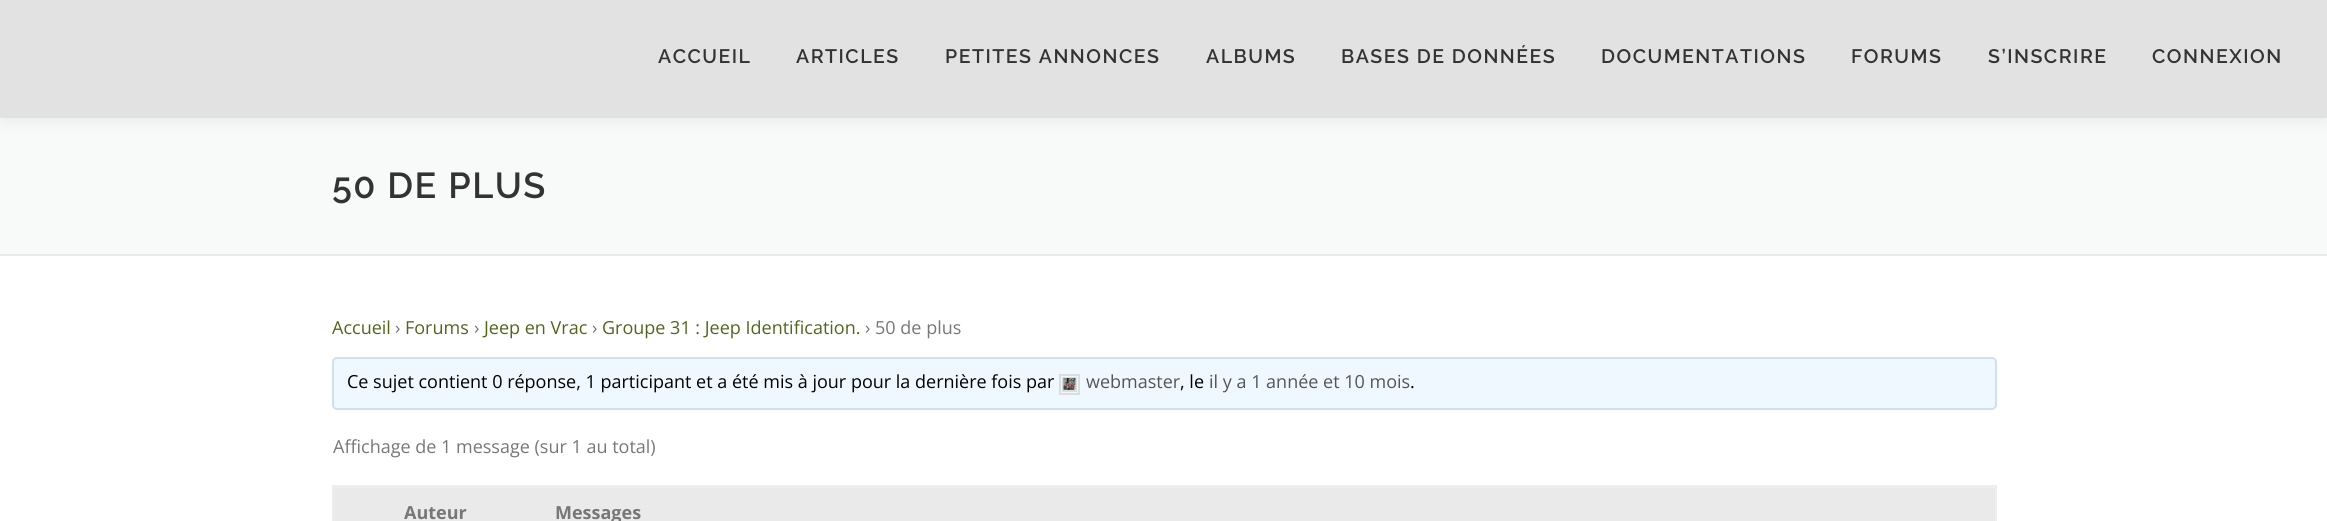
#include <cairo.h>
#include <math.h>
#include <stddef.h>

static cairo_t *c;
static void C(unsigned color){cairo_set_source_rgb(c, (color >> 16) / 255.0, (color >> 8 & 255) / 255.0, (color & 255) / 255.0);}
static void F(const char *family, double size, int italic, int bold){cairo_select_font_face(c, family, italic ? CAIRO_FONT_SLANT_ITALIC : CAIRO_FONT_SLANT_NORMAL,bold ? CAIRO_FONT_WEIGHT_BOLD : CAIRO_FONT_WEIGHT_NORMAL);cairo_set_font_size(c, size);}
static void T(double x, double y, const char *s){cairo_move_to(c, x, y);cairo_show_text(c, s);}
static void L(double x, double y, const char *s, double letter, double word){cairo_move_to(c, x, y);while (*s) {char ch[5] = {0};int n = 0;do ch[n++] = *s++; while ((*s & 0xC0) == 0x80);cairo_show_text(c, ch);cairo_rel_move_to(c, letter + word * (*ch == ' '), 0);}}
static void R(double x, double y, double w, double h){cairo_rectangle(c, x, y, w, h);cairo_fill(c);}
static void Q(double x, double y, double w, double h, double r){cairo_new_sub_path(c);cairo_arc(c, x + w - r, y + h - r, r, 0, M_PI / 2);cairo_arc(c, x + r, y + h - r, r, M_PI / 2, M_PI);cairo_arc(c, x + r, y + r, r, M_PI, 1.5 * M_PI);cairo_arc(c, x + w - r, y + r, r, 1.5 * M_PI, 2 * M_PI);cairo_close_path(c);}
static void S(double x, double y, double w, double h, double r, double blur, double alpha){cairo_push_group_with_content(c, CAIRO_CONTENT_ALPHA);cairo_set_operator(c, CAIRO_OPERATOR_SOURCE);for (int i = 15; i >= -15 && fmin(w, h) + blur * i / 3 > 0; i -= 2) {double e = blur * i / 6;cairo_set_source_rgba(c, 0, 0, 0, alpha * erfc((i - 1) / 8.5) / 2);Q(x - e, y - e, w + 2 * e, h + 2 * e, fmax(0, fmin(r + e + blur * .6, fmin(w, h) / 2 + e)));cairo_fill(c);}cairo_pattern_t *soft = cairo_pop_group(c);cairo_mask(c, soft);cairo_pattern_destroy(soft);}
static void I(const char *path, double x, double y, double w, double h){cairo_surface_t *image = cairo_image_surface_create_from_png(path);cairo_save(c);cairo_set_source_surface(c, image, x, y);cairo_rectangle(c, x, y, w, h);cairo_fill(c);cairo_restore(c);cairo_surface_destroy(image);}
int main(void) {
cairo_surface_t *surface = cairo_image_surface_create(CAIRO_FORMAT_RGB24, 2327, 521);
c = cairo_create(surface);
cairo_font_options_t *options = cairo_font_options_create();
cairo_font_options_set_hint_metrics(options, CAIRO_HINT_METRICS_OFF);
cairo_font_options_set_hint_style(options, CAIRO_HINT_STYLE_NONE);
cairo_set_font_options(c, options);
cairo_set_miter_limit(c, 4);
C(0xffffff);
cairo_paint(c);
C(0xf8f9f9);
R(0,118,2327,136);
C(0xe9e9e9);
R(0,116,2327,2);
C(0x323232);
S(0,8,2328,115,0,7.5,.06);
C(0xe2e2e2);
R(0,0,2327,116);
F("Raleway SemiBold",19.5,0,0);
C(0x333333);
L(658,63,"ACCUEIL",1.5,0);
L(796,63,"ARTICLES",1.5,0);
L(945,63,"PETITES ANNONCES",1.5,0);
L(1206,63,"ALBUMS",1.5,0);
L(1341,63,"BASES DE DONNÉES",1.5,0);
L(1601,63,"DOCUMENTATIONS",1.5,0);
L(1851,63,"FORUMS",1.5,0);
L(1988,63,"S’INSCRIRE",1.5,0);
L(2152,63,"CONNEXION",1.5,0);
C(0xe9e9e9);
R(0,254,2327,2);
F("Raleway SemiBold",36,0,0);
C(0x333333);
L(332,198,"50 DE PLUS",1.5,0);
F("Open Sans",18,0,0);
C(0x51661c);
T(332,334,"Accueil");
C(0x777777);
T(395,334,"›");
C(0x51661c);
T(405,334,"Forums");
C(0x777777);
T(474,334,"›");
C(0x51661c);
T(484,334,"Jeep en Vrac");
C(0x777777);
T(592,334,"›");
C(0x51661c);
T(602,334,"Groupe 31 : Jeep Identification.");
C(0x777777);
T(865,334,"› 50 de plus");
C(0xf0f8ff);
Q(333,358,1663,51,4);
cairo_fill_preserve(c);
C(0xcee1ef);
cairo_stroke(c);
C(0x000000);
T(347,388,"Ce sujet contient 0 réponse, 1 participant et a été mis à jour pour la dernière fois par");
cairo_rectangle(c,1060,375,19,19);
C(0xdddddd);
cairo_stroke(c);
cairo_rectangle(c,1063,378,13,13);
cairo_stroke(c);
I("1.png",1063,378,13,12);
C(0x555555);
T(1086,388,"webmaster");
C(0x000000);
T(1180,388,", le");
C(0x555555);
T(1209,388,"il y a 1 année et 10 mois");
C(0x000000);
T(1410,388,".");
C(0x777777);
T(333,453,"Affichage de 1 message (sur 1 au total)");
cairo_rectangle(c,333,486,1663,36);
C(0xeeeeee);
cairo_stroke(c);
C(0xeaeaea);
R(333,488,1662,33);
C(0xeeeeee);
R(333,487,1662,1);
F("Open Sans",18,0,1);
C(0x777777);
T(404,519,"Auteur");
T(555,519,"Messages");
cairo_surface_write_to_png(surface, "o.png");
cairo_font_options_destroy(options);
cairo_destroy(c);
cairo_surface_destroy(surface);
return 0;
}
